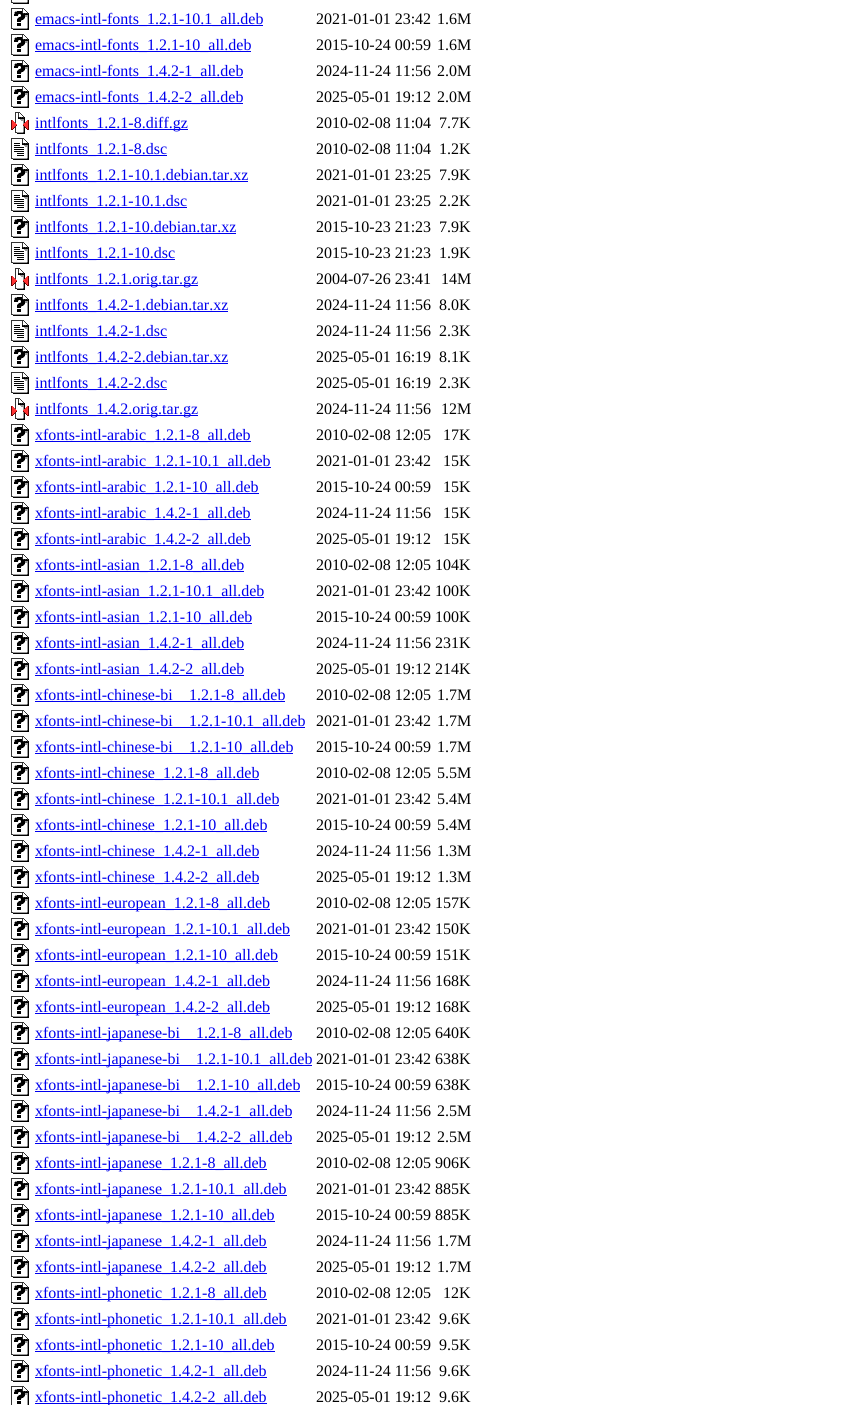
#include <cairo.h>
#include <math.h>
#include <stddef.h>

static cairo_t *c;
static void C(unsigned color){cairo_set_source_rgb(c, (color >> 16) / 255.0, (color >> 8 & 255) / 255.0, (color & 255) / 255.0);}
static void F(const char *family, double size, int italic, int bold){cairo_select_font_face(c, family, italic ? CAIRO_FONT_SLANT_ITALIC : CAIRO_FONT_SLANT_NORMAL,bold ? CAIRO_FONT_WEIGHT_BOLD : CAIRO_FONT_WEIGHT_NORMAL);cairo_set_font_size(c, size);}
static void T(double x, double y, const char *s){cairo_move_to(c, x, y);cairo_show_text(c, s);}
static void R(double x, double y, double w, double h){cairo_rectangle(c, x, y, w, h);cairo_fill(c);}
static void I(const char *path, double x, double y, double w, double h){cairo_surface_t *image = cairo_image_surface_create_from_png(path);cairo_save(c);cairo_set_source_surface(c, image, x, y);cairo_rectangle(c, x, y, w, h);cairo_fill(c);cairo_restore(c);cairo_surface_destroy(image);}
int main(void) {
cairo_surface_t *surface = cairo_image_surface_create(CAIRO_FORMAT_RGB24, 858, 1405);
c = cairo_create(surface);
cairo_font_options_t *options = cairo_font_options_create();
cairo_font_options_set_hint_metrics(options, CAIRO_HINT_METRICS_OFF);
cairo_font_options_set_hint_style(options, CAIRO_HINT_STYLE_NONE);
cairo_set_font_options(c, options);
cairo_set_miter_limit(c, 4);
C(0xffffff);
cairo_paint(c);
I("1.png",11,0,18,4);
I("2.png",11,8,18,22);
C(0x0000ee);
R(35,25,228,1);
F("Liberation Serif",16,0,0);
T(35,24,"emacs-intl-fonts_1.2.1-10.1_all.deb");
C(0x000000);
T(316,24,"2021-01-01 23:42");
T(437,24,"1.6M");
I("2.png",11,34,18,22);
C(0x0000ee);
R(35,51,216,1);
T(35,50,"emacs-intl-fonts_1.2.1-10_all.deb");
C(0x000000);
T(316,50,"2015-10-24 00:59");
T(437,50,"1.6M");
I("2.png",11,60,18,22);
C(0x0000ee);
R(35,77,208,1);
T(35,76,"emacs-intl-fonts_1.4.2-1_all.deb");
C(0x000000);
T(316,76,"2024-11-24 11:56");
T(437,76,"2.0M");
I("2.png",11,86,18,22);
C(0x0000ee);
R(35,103,208,1);
T(35,102,"emacs-intl-fonts_1.4.2-2_all.deb");
C(0x000000);
T(316,102,"2025-05-01 19:12");
T(437,102,"2.0M");
I("3.png",11,112,18,22);
C(0x0000ee);
R(35,129,153,1);
T(35,128,"intlfonts_1.2.1-8.diff.gz");
C(0x000000);
T(316,128,"2010-02-08 11:04");
T(439,128,"7.7K");
I("4.png",11,138,18,22);
C(0x0000ee);
R(35,155,132,1);
T(35,154,"intlfonts_1.2.1-8.dsc");
C(0x000000);
T(316,154,"2010-02-08 11:04");
T(439,154,"1.2K");
I("2.png",11,164,18,22);
C(0x0000ee);
R(35,181,213,1);
T(35,180,"intlfonts_1.2.1-10.1.debian.tar.xz");
C(0x000000);
T(316,180,"2021-01-01 23:25");
T(439,180,"7.9K");
I("4.png",11,190,18,22);
C(0x0000ee);
R(35,207,152,1);
T(35,206,"intlfonts_1.2.1-10.1.dsc");
C(0x000000);
T(316,206,"2021-01-01 23:25");
T(439,206,"2.2K");
I("2.png",11,216,18,22);
C(0x0000ee);
R(35,233,201,1);
T(35,232,"intlfonts_1.2.1-10.debian.tar.xz");
C(0x000000);
T(316,232,"2015-10-23 21:23");
T(439,232,"7.9K");
I("4.png",11,242,18,22);
C(0x0000ee);
R(35,259,140,1);
T(35,258,"intlfonts_1.2.1-10.dsc");
C(0x000000);
T(316,258,"2015-10-23 21:23");
T(439,258,"1.9K");
I("3.png",11,268,18,22);
C(0x0000ee);
R(35,285,163,1);
T(35,284,"intlfonts_1.2.1.orig.tar.gz");
C(0x000000);
T(316,284,"2004-07-26 23:41");
T(441,284,"14M");
I("2.png",11,294,18,22);
C(0x0000ee);
R(35,311,193,1);
T(35,310,"intlfonts_1.4.2-1.debian.tar.xz");
C(0x000000);
T(316,310,"2024-11-24 11:56");
T(439,310,"8.0K");
I("4.png",11,320,18,22);
C(0x0000ee);
R(35,337,132,1);
T(35,336,"intlfonts_1.4.2-1.dsc");
C(0x000000);
T(316,336,"2024-11-24 11:56");
T(439,336,"2.3K");
I("2.png",11,346,18,22);
C(0x0000ee);
R(35,363,193,1);
T(35,362,"intlfonts_1.4.2-2.debian.tar.xz");
C(0x000000);
T(316,362,"2025-05-01 16:19");
T(439,362,"8.1K");
I("4.png",11,372,18,22);
C(0x0000ee);
R(35,389,132,1);
T(35,388,"intlfonts_1.4.2-2.dsc");
C(0x000000);
T(316,388,"2025-05-01 16:19");
T(439,388,"2.3K");
I("3.png",11,398,18,22);
C(0x0000ee);
R(35,415,163,1);
T(35,414,"intlfonts_1.4.2.orig.tar.gz");
C(0x000000);
T(316,414,"2024-11-24 11:56");
T(441,414,"12M");
I("2.png",11,424,18,22);
C(0x0000ee);
R(35,441,216,1);
T(35,440,"xfonts-intl-arabic_1.2.1-8_all.deb");
C(0x000000);
T(316,440,"2010-02-08 12:05");
T(443,440,"17K");
I("2.png",11,450,18,22);
C(0x0000ee);
R(35,467,236,1);
T(35,466,"xfonts-intl-arabic_1.2.1-10.1_all.deb");
C(0x000000);
T(316,466,"2021-01-01 23:42");
T(443,466,"15K");
I("2.png",11,476,18,22);
C(0x0000ee);
R(35,493,224,1);
T(35,492,"xfonts-intl-arabic_1.2.1-10_all.deb");
C(0x000000);
T(316,492,"2015-10-24 00:59");
T(443,492,"15K");
I("2.png",11,502,18,22);
C(0x0000ee);
R(35,519,216,1);
T(35,518,"xfonts-intl-arabic_1.4.2-1_all.deb");
C(0x000000);
T(316,518,"2024-11-24 11:56");
T(443,518,"15K");
I("2.png",11,528,18,22);
C(0x0000ee);
R(35,545,216,1);
T(35,544,"xfonts-intl-arabic_1.4.2-2_all.deb");
C(0x000000);
T(316,544,"2025-05-01 19:12");
T(443,544,"15K");
I("2.png",11,554,18,22);
C(0x0000ee);
R(35,571,209,1);
T(35,570,"xfonts-intl-asian_1.2.1-8_all.deb");
C(0x000000);
T(316,570,"2010-02-08 12:05 104K");
I("2.png",11,580,18,22);
C(0x0000ee);
R(35,597,229,1);
T(35,596,"xfonts-intl-asian_1.2.1-10.1_all.deb");
C(0x000000);
T(316,596,"2021-01-01 23:42 100K");
I("2.png",11,606,18,22);
C(0x0000ee);
R(35,623,217,1);
T(35,622,"xfonts-intl-asian_1.2.1-10_all.deb");
C(0x000000);
T(316,622,"2015-10-24 00:59 100K");
I("2.png",11,632,18,22);
C(0x0000ee);
R(35,649,209,1);
T(35,648,"xfonts-intl-asian_1.4.2-1_all.deb");
C(0x000000);
T(316,648,"2024-11-24 11:56 231K");
I("2.png",11,658,18,22);
C(0x0000ee);
R(35,675,209,1);
T(35,674,"xfonts-intl-asian_1.4.2-2_all.deb");
C(0x000000);
T(316,674,"2025-05-01 19:12 214K");
I("2.png",11,684,18,22);
C(0x0000ee);
T(35,700,"xfonts-intl-chinese-bi");
R(35,701,250,1);
T(189,700,"1.2.1-8_all.deb");
C(0x000000);
T(316,700,"2010-02-08 12:05");
T(437,700,"1.7M");
I("2.png",11,710,18,22);
C(0x0000ee);
T(35,726,"xfonts-intl-chinese-bi");
R(35,727,270,1);
T(189,726,"1.2.1-10.1_all.deb");
C(0x000000);
T(316,726,"2021-01-01 23:42");
T(437,726,"1.7M");
I("2.png",11,736,18,22);
C(0x0000ee);
T(35,752,"xfonts-intl-chinese-bi");
R(35,753,258,1);
T(189,752,"1.2.1-10_all.deb");
C(0x000000);
T(316,752,"2015-10-24 00:59");
T(437,752,"1.7M");
I("2.png",11,762,18,22);
C(0x0000ee);
R(35,779,224,1);
T(35,778,"xfonts-intl-chinese_1.2.1-8_all.deb");
C(0x000000);
T(316,778,"2010-02-08 12:05");
T(437,778,"5.5M");
I("2.png",11,788,18,22);
C(0x0000ee);
R(35,805,244,1);
T(35,804,"xfonts-intl-chinese_1.2.1-10.1_all.deb");
C(0x000000);
T(316,804,"2021-01-01 23:42");
T(437,804,"5.4M");
I("2.png",11,814,18,22);
C(0x0000ee);
R(35,831,232,1);
T(35,830,"xfonts-intl-chinese_1.2.1-10_all.deb");
C(0x000000);
T(316,830,"2015-10-24 00:59");
T(437,830,"5.4M");
I("2.png",11,840,18,22);
C(0x0000ee);
R(35,857,224,1);
T(35,856,"xfonts-intl-chinese_1.4.2-1_all.deb");
C(0x000000);
T(316,856,"2024-11-24 11:56");
T(437,856,"1.3M");
I("2.png",11,866,18,22);
C(0x0000ee);
R(35,883,224,1);
T(35,882,"xfonts-intl-chinese_1.4.2-2_all.deb");
C(0x000000);
T(316,882,"2025-05-01 19:12");
T(437,882,"1.3M");
I("2.png",11,892,18,22);
C(0x0000ee);
R(35,909,235,1);
T(35,908,"xfonts-intl-european_1.2.1-8_all.deb");
C(0x000000);
T(316,908,"2010-02-08 12:05 157K");
I("2.png",11,918,18,22);
C(0x0000ee);
R(35,935,255,1);
T(35,934,"xfonts-intl-european_1.2.1-10.1_all.deb");
C(0x000000);
T(316,934,"2021-01-01 23:42 150K");
I("2.png",11,944,18,22);
C(0x0000ee);
R(35,961,243,1);
T(35,960,"xfonts-intl-european_1.2.1-10_all.deb");
C(0x000000);
T(316,960,"2015-10-24 00:59 151K");
I("2.png",11,970,18,22);
C(0x0000ee);
R(35,987,235,1);
T(35,986,"xfonts-intl-european_1.4.2-1_all.deb");
C(0x000000);
T(316,986,"2024-11-24 11:56 168K");
I("2.png",11,996,18,22);
C(0x0000ee);
R(35,1013,235,1);
T(35,1012,"xfonts-intl-european_1.4.2-2_all.deb");
C(0x000000);
T(316,1012,"2025-05-01 19:12 168K");
I("2.png",11,1022,18,22);
C(0x0000ee);
R(35,1039,257,1);
T(35,1038,"xfonts-intl-japanese-bi");
T(196,1038,"1.2.1-8_all.deb");
C(0x000000);
T(316,1038,"2010-02-08 12:05 640K");
I("2.png",11,1048,18,22);
C(0x0000ee);
R(35,1065,277,1);
T(35,1064,"xfonts-intl-japanese-bi");
T(196,1064,"1.2.1-10.1_all.deb");
C(0x000000);
T(316,1064,"2021-01-01 23:42 638K");
I("2.png",11,1074,18,22);
C(0x0000ee);
R(35,1091,265,1);
T(35,1090,"xfonts-intl-japanese-bi");
T(196,1090,"1.2.1-10_all.deb");
C(0x000000);
T(316,1090,"2015-10-24 00:59 638K");
I("2.png",11,1100,18,22);
C(0x0000ee);
R(35,1117,257,1);
T(35,1116,"xfonts-intl-japanese-bi");
T(196,1116,"1.4.2-1_all.deb");
C(0x000000);
T(316,1116,"2024-11-24 11:56");
T(437,1116,"2.5M");
I("2.png",11,1126,18,22);
C(0x0000ee);
R(35,1143,257,1);
T(35,1142,"xfonts-intl-japanese-bi");
T(196,1142,"1.4.2-2_all.deb");
C(0x000000);
T(316,1142,"2025-05-01 19:12");
T(437,1142,"2.5M");
I("2.png",11,1152,18,22);
C(0x0000ee);
R(35,1169,232,1);
T(35,1168,"xfonts-intl-japanese_1.2.1-8_all.deb");
C(0x000000);
T(316,1168,"2010-02-08 12:05 906K");
I("2.png",11,1178,18,22);
C(0x0000ee);
R(35,1195,252,1);
T(35,1194,"xfonts-intl-japanese_1.2.1-10.1_all.deb");
C(0x000000);
T(316,1194,"2021-01-01 23:42 885K");
I("2.png",11,1204,18,22);
C(0x0000ee);
R(35,1221,240,1);
T(35,1220,"xfonts-intl-japanese_1.2.1-10_all.deb");
C(0x000000);
T(316,1220,"2015-10-24 00:59 885K");
I("2.png",11,1230,18,22);
C(0x0000ee);
R(35,1247,232,1);
T(35,1246,"xfonts-intl-japanese_1.4.2-1_all.deb");
C(0x000000);
T(316,1246,"2024-11-24 11:56");
T(437,1246,"1.7M");
I("2.png",11,1256,18,22);
C(0x0000ee);
R(35,1273,232,1);
T(35,1272,"xfonts-intl-japanese_1.4.2-2_all.deb");
C(0x000000);
T(316,1272,"2025-05-01 19:12");
T(437,1272,"1.7M");
I("2.png",11,1282,18,22);
C(0x0000ee);
R(35,1299,232,1);
T(35,1298,"xfonts-intl-phonetic_1.2.1-8_all.deb");
C(0x000000);
T(316,1298,"2010-02-08 12:05");
T(443,1298,"12K");
I("2.png",11,1308,18,22);
C(0x0000ee);
R(35,1325,252,1);
T(35,1324,"xfonts-intl-phonetic_1.2.1-10.1_all.deb");
C(0x000000);
T(316,1324,"2021-01-01 23:42");
T(439,1324,"9.6K");
I("2.png",11,1334,18,22);
C(0x0000ee);
R(35,1351,240,1);
T(35,1350,"xfonts-intl-phonetic_1.2.1-10_all.deb");
C(0x000000);
T(316,1350,"2015-10-24 00:59");
T(439,1350,"9.5K");
I("2.png",11,1360,18,22);
C(0x0000ee);
R(35,1377,232,1);
T(35,1376,"xfonts-intl-phonetic_1.4.2-1_all.deb");
C(0x000000);
T(316,1376,"2024-11-24 11:56");
T(439,1376,"9.6K");
I("5.png",11,1386,18,19);
C(0x0000ee);
R(35,1403,232,1);
T(35,1402,"xfonts-intl-phonetic_1.4.2-2_all.deb");
C(0x000000);
T(316,1402,"2025-05-01 19:12");
T(439,1402,"9.6K");
cairo_surface_write_to_png(surface, "o.png");
cairo_font_options_destroy(options);
cairo_destroy(c);
cairo_surface_destroy(surface);
return 0;
}
